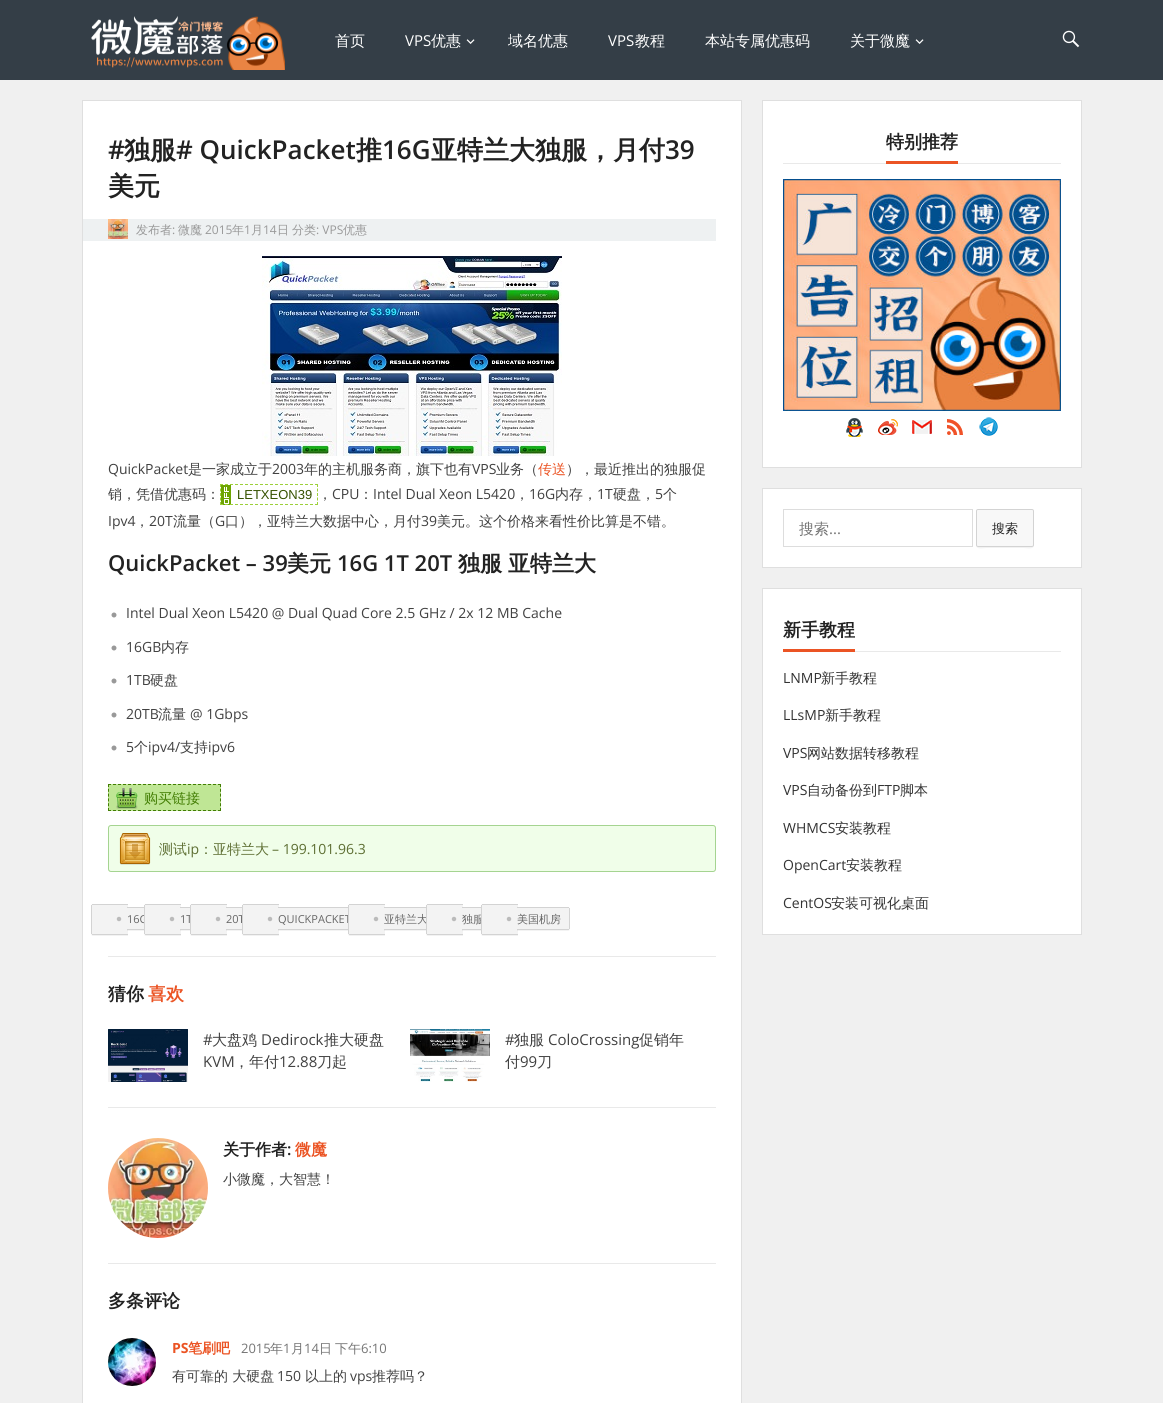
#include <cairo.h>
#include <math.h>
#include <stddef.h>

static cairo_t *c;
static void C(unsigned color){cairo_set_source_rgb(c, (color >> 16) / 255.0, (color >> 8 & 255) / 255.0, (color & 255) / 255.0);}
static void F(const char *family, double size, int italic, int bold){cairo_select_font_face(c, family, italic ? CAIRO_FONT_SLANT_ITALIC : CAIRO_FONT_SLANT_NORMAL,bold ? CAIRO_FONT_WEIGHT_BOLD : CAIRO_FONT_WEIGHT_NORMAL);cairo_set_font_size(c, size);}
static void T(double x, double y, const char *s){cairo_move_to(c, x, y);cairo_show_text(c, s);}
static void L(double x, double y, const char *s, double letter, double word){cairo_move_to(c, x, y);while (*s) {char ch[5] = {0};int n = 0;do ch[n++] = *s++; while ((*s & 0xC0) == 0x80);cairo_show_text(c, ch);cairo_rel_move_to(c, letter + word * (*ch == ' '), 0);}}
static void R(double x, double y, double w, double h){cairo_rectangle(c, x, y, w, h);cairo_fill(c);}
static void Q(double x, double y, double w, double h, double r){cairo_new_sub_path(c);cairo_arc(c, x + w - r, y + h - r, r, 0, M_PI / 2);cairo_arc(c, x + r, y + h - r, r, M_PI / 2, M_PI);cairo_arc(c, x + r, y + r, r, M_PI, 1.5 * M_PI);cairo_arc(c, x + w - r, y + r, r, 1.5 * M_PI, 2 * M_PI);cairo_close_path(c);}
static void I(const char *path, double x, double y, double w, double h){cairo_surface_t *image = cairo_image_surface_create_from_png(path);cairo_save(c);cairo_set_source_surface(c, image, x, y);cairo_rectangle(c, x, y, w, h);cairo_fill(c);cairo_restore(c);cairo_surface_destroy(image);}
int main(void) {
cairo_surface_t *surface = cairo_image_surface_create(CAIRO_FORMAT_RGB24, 1163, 1403);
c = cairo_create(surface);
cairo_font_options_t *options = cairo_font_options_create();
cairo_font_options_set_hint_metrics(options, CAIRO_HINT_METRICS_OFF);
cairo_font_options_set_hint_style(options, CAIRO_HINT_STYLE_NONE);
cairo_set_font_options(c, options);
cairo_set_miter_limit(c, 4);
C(0xf0f0f0);
cairo_paint(c);
C(0x343e47);
R(0,0,1163,80);
I("1.png",91,16,194,54);
F("WenQuanYi Zen Hei Medium",15,0,0);
C(0xffffff);
T(335,46,"首页");
F("Open Sans",15,0,0);
T(405,46,"VPS");
F("WenQuanYi Zen Hei Medium",15,0,0);
T(431,46,"优惠");
I("2.png",466,39,9,5);
T(508,46,"域名优惠");
F("Open Sans",15,0,0);
T(608,46,"VPS");
F("WenQuanYi Zen Hei Medium",15,0,0);
T(635,46,"教程");
T(705,46,"本站专属优惠码");
T(850,46,"关于微魔");
I("2.png",915,39,9,5);
I("3.png",1062,30,18,18);
cairo_rectangle(c,82.5,100.5,659,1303);
cairo_fill_preserve(c);
C(0xdfdfdf);
cairo_set_line_width(c,1);
cairo_stroke(c);
F("Open Sans SemiBold",26,0,0);
C(0x222222);
T(108,159,"#");
F("WenQuanYi Zen Hei",26,0,1);
T(124,159,"独服");
F("Open Sans SemiBold",26,0,0);
T(176,159,"# QuickPacket");
F("WenQuanYi Zen Hei",26,0,1);
T(356,159,"推");
F("Open Sans SemiBold",26,0,0);
T(382,159,"16G");
F("WenQuanYi Zen Hei",26,0,1);
T(431,159,"亚特兰大独服，月付");
F("Open Sans SemiBold",26,0,0);
T(665,159,"39");
F("WenQuanYi Zen Hei",26,0,1);
T(108,195,"美元");
C(0xeef1f2);
R(83,219,633,22);
I("4.png",108,219,20,20);
F("WenQuanYi Zen Hei Medium",12,0,0);
C(0x999999);
T(136,234,"发布者");
F("Open Sans",12,0,0);
T(172,234,":");
F("WenQuanYi Zen Hei Medium",12,0,0);
T(178,234,"微魔");
F("Open Sans",12,0,0);
T(205,234,"2015");
F("WenQuanYi Zen Hei Medium",12,0,0);
T(232,234,"年");
F("Open Sans",12,0,0);
T(244,234,"1");
F("WenQuanYi Zen Hei Medium",12,0,0);
T(251,234,"月");
F("Open Sans",12,0,0);
T(263,234,"14");
F("WenQuanYi Zen Hei Medium",12,0,0);
T(277,234,"日");
T(292,234,"分类");
F("Open Sans",12,0,0);
T(316,234,": VPS");
F("WenQuanYi Zen Hei Medium",12,0,0);
T(343,234,"优惠");
I("5.png",262,256,300,200);
F("Open Sans",14,0,0);
C(0x414141);
T(108,474,"QuickPacket");
F("WenQuanYi Zen Hei Medium",14,0,0);
T(188,474,"是一家成立于");
F("Open Sans",14,0,0);
T(272,474,"2003");
F("WenQuanYi Zen Hei Medium",14,0,0);
T(304,474,"年的主机服务商，旗下也有");
F("Open Sans",14,0,0);
T(472,474,"VPS");
F("WenQuanYi Zen Hei Medium",14,0,0);
T(496,474,"业务（");
C(0xeb5424);
T(538,474,"传送");
C(0x414141);
T(566,474,"），最近推出的独服促");
T(108,499,"销，凭借优惠码：");
I("6.png",221,485,10,20);
F("Liberation Sans",13,0,0);
C(0x365200);
T(237,499,"LETXEON39");
cairo_new_path(c);
cairo_move_to(c,220,484.5);
cairo_line_to(c,318,484.5);
C(0x9dd03a);
cairo_set_dash(c,(double[]){3,2},2,0);
cairo_stroke(c);
cairo_new_path(c);
cairo_move_to(c,317.5,484);
cairo_line_to(c,317.5,505);
cairo_set_dash(c,(double[]){3,1.5},2,0);
cairo_stroke(c);
cairo_new_path(c);
cairo_move_to(c,220,504.5);
cairo_line_to(c,318,504.5);
cairo_set_dash(c,(double[]){3,2},2,0);
cairo_stroke(c);
cairo_new_path(c);
cairo_move_to(c,220.5,484);
cairo_line_to(c,220.5,505);
cairo_set_dash(c,(double[]){3,1.5},2,0);
cairo_stroke(c);
F("WenQuanYi Zen Hei Medium",14,0,0);
C(0x414141);
T(318,499,"，");
F("Open Sans",14,0,0);
T(332,499,"CPU");
F("WenQuanYi Zen Hei Medium",14,0,0);
T(359,499,"：");
F("Open Sans",14,0,0);
T(373,499,"Intel Dual Xeon L5420");
F("WenQuanYi Zen Hei Medium",14,0,0);
T(515,499,"，");
F("Open Sans",14,0,0);
T(529,499,"16G");
F("WenQuanYi Zen Hei Medium",14,0,0);
T(555,499,"内存，");
F("Open Sans",14,0,0);
T(597,499,"1T");
F("WenQuanYi Zen Hei Medium",14,0,0);
T(613,499,"硬盘，");
F("Open Sans",14,0,0);
T(655,499,"5");
F("WenQuanYi Zen Hei Medium",14,0,0);
T(663,499,"个");
F("Open Sans",14,0,0);
T(108,526,"Ipv4");
F("WenQuanYi Zen Hei Medium",14,0,0);
T(135,526,"，");
F("Open Sans",14,0,0);
T(149,526,"20T");
F("WenQuanYi Zen Hei Medium",14,0,0);
T(173,526,"流量（");
F("Open Sans",14,0,0);
T(215,526,"G");
F("WenQuanYi Zen Hei Medium",14,0,0);
T(225,526,"口），亚特兰大数据中心，月付");
F("Open Sans",14,0,0);
T(421,526,"39");
F("WenQuanYi Zen Hei Medium",14,0,0);
T(437,526,"美元。这个价格来看性价比算是不错。");
F("Open Sans SemiBold",22,0,0);
C(0x222222);
T(108,571,"QuickPacket – 39");
F("WenQuanYi Zen Hei",22,0,1);
T(287,571,"美元");
F("Open Sans SemiBold",22,0,0);
T(337,571,"16G 1T 20T");
F("WenQuanYi Zen Hei",22,0,1);
T(458,571,"独服");
T(508,571,"亚特兰大");
I("7.png",111,612,6,6);
F("Open Sans",14,0,0);
C(0x414141);
T(126,618,"Intel Dual Xeon L5420 @ Dual Quad Core 2.5 GHz / 2x 12 MB Cache");
I("7.png",111,645,6,6);
T(126,652,"16GB");
F("WenQuanYi Zen Hei Medium",14,0,0);
T(161,652,"内存");
I("7.png",111,678,6,6);
F("Open Sans",14,0,0);
T(126,685,"1TB");
F("WenQuanYi Zen Hei Medium",14,0,0);
T(150,685,"硬盘");
I("7.png",111,712,6,6);
F("Open Sans",14,0,0);
T(126,719,"20TB");
F("WenQuanYi Zen Hei Medium",14,0,0);
T(158,719,"流量");
F("Open Sans",14,0,0);
T(190,719,"@ 1Gbps");
I("7.png",111,745,6,6);
T(126,752,"5");
F("WenQuanYi Zen Hei Medium",14,0,0);
T(134,752,"个");
F("Open Sans",14,0,0);
T(148,752,"ipv4/");
F("WenQuanYi Zen Hei Medium",14,0,0);
T(180,752,"支持");
F("Open Sans",14,0,0);
T(208,752,"ipv6");
C(0xbfe695);
R(108,784,113,27);
I("8.png",116,788,22,21);
F("WenQuanYi Zen Hei Medium",14,0,0);
C(0x437e04);
T(144,803,"购买链接");
cairo_new_path(c);
cairo_move_to(c,108,784.5);
cairo_line_to(c,221,784.5);
cairo_set_dash(c,(double[]){3,2},2,0);
cairo_stroke(c);
cairo_new_path(c);
cairo_move_to(c,220.5,784);
cairo_line_to(c,220.5,811);
cairo_set_dash(c,(double[]){3,1.8},2,0);
cairo_stroke(c);
cairo_new_path(c);
cairo_move_to(c,108,810.5);
cairo_line_to(c,221,810.5);
cairo_set_dash(c,(double[]){3,2},2,0);
cairo_stroke(c);
cairo_new_path(c);
cairo_move_to(c,108.5,784);
cairo_line_to(c,108.5,811);
cairo_set_dash(c,(double[]){3,1.8},2,0);
cairo_stroke(c);
C(0xf0fee9);
Q(108,825,608,47,3);
cairo_fill(c);
I("9.png",119,833,32,32);
Q(108.5,825.5,607,46,2.5);
C(0xa5d491);
cairo_set_dash(c,NULL,0,0);
cairo_stroke(c);
C(0x5e6f33);
T(159,854,"测试");
F("Open Sans",14,0,0);
T(187,854,"ip");
F("WenQuanYi Zen Hei Medium",14,0,0);
T(199,854,"：亚特兰大");
F("Open Sans",14,0,0);
T(272,854,"– 199.101.96.3");
C(0xf2f2f2);
cairo_new_path(c);
cairo_move_to(c,91,933);
cairo_line_to(c,91,934);
cairo_curve_to(c,91,935,92,936,93,936);
cairo_line_to(c,128,936);
cairo_line_to(c,128,935);
cairo_line_to(c,93,935);
cairo_curve_to(c,92,935,91,934,91,933);
cairo_close_path(c);
cairo_fill(c);
C(0xf3f3f3);
cairo_new_path(c);
cairo_move_to(c,93,904);
cairo_line_to(c,128,904);
cairo_line_to(c,128,935);
cairo_line_to(c,93,935);
cairo_curve_to(c,92,935,91,934,91,933);
cairo_line_to(c,91,906);
cairo_curve_to(c,91,905,92,904,93,904);
cairo_close_path(c);
cairo_fill(c);
C(0xd3d3d3);
R(92,904,36,1);
R(92,934,36,1);
R(91,905,1,29);
cairo_set_source_rgba(c,0,0,0,0.05);
cairo_new_path(c);
cairo_move_to(c,127,930);
cairo_line_to(c,127,931);
cairo_line_to(c,154,931);
cairo_curve_to(c,155,931,156,930,156,929);
cairo_line_to(c,156,928);
cairo_curve_to(c,156,929,155,930,154,930);
cairo_close_path(c);
cairo_fill(c);
C(0xf3f3f3);
R(128,908,16,21);
C(0xd3d3d3);
R(127,907,17,1);
R(127,929,17,1);
I("10.png",116,916,6,6);
F("Open Sans",11,0,0);
C(0x666666);
T(127,923,"16G");
C(0xf2f2f2);
cairo_new_path(c);
cairo_move_to(c,144,933);
cairo_line_to(c,144,934);
cairo_curve_to(c,144,935,145,936,146,936);
cairo_line_to(c,181,936);
cairo_line_to(c,181,935);
cairo_line_to(c,146,935);
cairo_curve_to(c,145,935,144,934,144,933);
cairo_close_path(c);
cairo_fill(c);
C(0xf3f3f3);
cairo_new_path(c);
cairo_move_to(c,146,904);
cairo_line_to(c,181,904);
cairo_line_to(c,181,935);
cairo_line_to(c,146,935);
cairo_curve_to(c,145,935,144,934,144,933);
cairo_line_to(c,144,906);
cairo_curve_to(c,144,905,145,904,146,904);
cairo_close_path(c);
cairo_fill(c);
C(0xd3d3d3);
R(145,904,36,1);
R(145,934,36,1);
R(144,905,1,29);
cairo_set_source_rgba(c,0,0,0,0.05);
cairo_new_path(c);
cairo_move_to(c,180,930);
cairo_line_to(c,180,931);
cairo_line_to(c,200,931);
cairo_curve_to(c,201,931,202,930,202,929);
cairo_line_to(c,202,928);
cairo_curve_to(c,202,929,201,930,200,930);
cairo_close_path(c);
cairo_fill(c);
C(0xf3f3f3);
R(181,908,9,21);
C(0xd3d3d3);
R(180,907,10,1);
R(180,929,10,1);
I("10.png",169,916,6,6);
C(0x666666);
T(180,923,"1T");
C(0xf2f2f2);
cairo_new_path(c);
cairo_move_to(c,190,933);
cairo_line_to(c,190,934);
cairo_curve_to(c,190,935,191,936,192,936);
cairo_line_to(c,227,936);
cairo_line_to(c,227,935);
cairo_line_to(c,192,935);
cairo_curve_to(c,191,935,190,934,190,933);
cairo_close_path(c);
cairo_fill(c);
C(0xf3f3f3);
cairo_new_path(c);
cairo_move_to(c,192,904);
cairo_line_to(c,227,904);
cairo_line_to(c,227,935);
cairo_line_to(c,192,935);
cairo_curve_to(c,191,935,190,934,190,933);
cairo_line_to(c,190,906);
cairo_curve_to(c,190,905,191,904,192,904);
cairo_close_path(c);
cairo_fill(c);
C(0xd3d3d3);
R(191,904,36,1);
R(191,934,36,1);
R(190,905,1,29);
cairo_set_source_rgba(c,0,0,0,0.05);
cairo_new_path(c);
cairo_move_to(c,226,930);
cairo_line_to(c,226,931);
cairo_line_to(c,252,931);
cairo_curve_to(c,253,931,254,930,254,929);
cairo_line_to(c,254,928);
cairo_curve_to(c,254,929,253,930,252,930);
cairo_close_path(c);
cairo_fill(c);
C(0xf3f3f3);
R(227,908,15,21);
C(0xd3d3d3);
R(226,907,16,1);
R(226,929,16,1);
I("10.png",215,916,6,6);
C(0x666666);
T(226,923,"20T");
C(0xf2f2f2);
cairo_new_path(c);
cairo_move_to(c,242,933);
cairo_line_to(c,242,934);
cairo_curve_to(c,242,935,243,936,244,936);
cairo_line_to(c,279,936);
cairo_line_to(c,279,935);
cairo_line_to(c,244,935);
cairo_curve_to(c,243,935,242,934,242,933);
cairo_close_path(c);
cairo_fill(c);
C(0xf3f3f3);
cairo_new_path(c);
cairo_move_to(c,244,904);
cairo_line_to(c,279,904);
cairo_line_to(c,279,935);
cairo_line_to(c,244,935);
cairo_curve_to(c,243,935,242,934,242,933);
cairo_line_to(c,242,906);
cairo_curve_to(c,242,905,243,904,244,904);
cairo_close_path(c);
cairo_fill(c);
C(0xd3d3d3);
R(243,904,36,1);
R(243,934,36,1);
R(242,905,1,29);
cairo_set_source_rgba(c,0,0,0,0.05);
cairo_new_path(c);
cairo_move_to(c,278,930);
cairo_line_to(c,278,931);
cairo_line_to(c,358,931);
cairo_curve_to(c,359,931,360,930,360,929);
cairo_line_to(c,360,928);
cairo_line_to(c,359,930);
cairo_close_path(c);
cairo_fill(c);
C(0xf3f3f3);
R(279,908,69,21);
C(0xd3d3d3);
R(278,907,70,1);
R(278,929,70,1);
I("10.png",267,916,6,6);
C(0x666666);
T(278,923,"QUICKPACKET");
C(0xf2f2f2);
cairo_new_path(c);
cairo_move_to(c,348,933);
cairo_line_to(c,348,934);
cairo_curve_to(c,348,935,349,936,350,936);
cairo_line_to(c,385,936);
cairo_line_to(c,385,935);
cairo_line_to(c,350,935);
cairo_curve_to(c,349,935,348,934,348,933);
cairo_close_path(c);
cairo_fill(c);
C(0xf3f3f3);
cairo_new_path(c);
cairo_move_to(c,350,904);
cairo_line_to(c,385,904);
cairo_line_to(c,385,935);
cairo_line_to(c,350,935);
cairo_curve_to(c,349,935,348,934,348,933);
cairo_line_to(c,348,906);
cairo_curve_to(c,348,905,349,904,350,904);
cairo_close_path(c);
cairo_fill(c);
C(0xd3d3d3);
R(349,904,36,1);
R(349,934,36,1);
R(348,905,1,29);
cairo_set_source_rgba(c,0,0,0,0.05);
cairo_new_path(c);
cairo_move_to(c,384,930);
cairo_line_to(c,384,931);
cairo_line_to(c,435,931);
cairo_curve_to(c,436,931,437,930,437,929);
cairo_line_to(c,437,928);
cairo_curve_to(c,437,929,436,930,435,930);
cairo_close_path(c);
cairo_fill(c);
C(0xf3f3f3);
R(385,908,41,21);
C(0xd3d3d3);
R(384,907,42,1);
R(384,929,42,1);
I("10.png",373,916,6,6);
F("WenQuanYi Zen Hei Medium",11,0,0);
C(0x666666);
T(384,923,"亚特兰大");
C(0xf2f2f2);
cairo_new_path(c);
cairo_move_to(c,426,933);
cairo_line_to(c,426,934);
cairo_curve_to(c,426,935,427,936,428,936);
cairo_line_to(c,463,936);
cairo_line_to(c,463,935);
cairo_line_to(c,428,935);
cairo_curve_to(c,427,935,426,934,426,933);
cairo_close_path(c);
cairo_fill(c);
C(0xf3f3f3);
cairo_new_path(c);
cairo_move_to(c,428,904);
cairo_line_to(c,463,904);
cairo_line_to(c,463,935);
cairo_line_to(c,428,935);
cairo_curve_to(c,427,935,426,934,426,933);
cairo_line_to(c,426,906);
cairo_curve_to(c,426,905,427,904,428,904);
cairo_close_path(c);
cairo_fill(c);
C(0xd3d3d3);
R(427,904,36,1);
R(427,934,36,1);
R(426,905,1,29);
cairo_set_source_rgba(c,0,0,0,0.05);
cairo_new_path(c);
cairo_move_to(c,462,930);
cairo_line_to(c,462,931);
cairo_line_to(c,491,931);
cairo_curve_to(c,492,931,493,930,493,929);
cairo_line_to(c,493,928);
cairo_curve_to(c,493,929,492,930,491,930);
cairo_close_path(c);
cairo_fill(c);
C(0xf3f3f3);
R(463,908,18,21);
C(0xd3d3d3);
R(462,907,19,1);
R(462,929,19,1);
I("10.png",451,916,6,6);
C(0x666666);
T(462,923,"独服");
C(0xf2f2f2);
cairo_new_path(c);
cairo_move_to(c,481,933);
cairo_line_to(c,481,934);
cairo_curve_to(c,481,935,482,936,483,936);
cairo_line_to(c,518,936);
cairo_line_to(c,518,935);
cairo_line_to(c,483,935);
cairo_curve_to(c,482,935,481,934,481,933);
cairo_close_path(c);
cairo_fill(c);
C(0xf3f3f3);
cairo_new_path(c);
cairo_move_to(c,483,904);
cairo_line_to(c,518,904);
cairo_line_to(c,518,935);
cairo_line_to(c,483,935);
cairo_curve_to(c,482,935,481,934,481,933);
cairo_line_to(c,481,906);
cairo_curve_to(c,481,905,482,904,483,904);
cairo_close_path(c);
cairo_fill(c);
C(0xd3d3d3);
R(482,904,36,1);
R(482,934,36,1);
R(481,905,1,29);
cairo_set_source_rgba(c,0,0,0,0.05);
cairo_new_path(c);
cairo_move_to(c,517,930);
cairo_line_to(c,517,931);
cairo_line_to(c,568,931);
cairo_curve_to(c,569,931,570,930,570,929);
cairo_line_to(c,570,928);
cairo_curve_to(c,570,929,569,930,568,930);
cairo_close_path(c);
cairo_fill(c);
C(0xf3f3f3);
cairo_new_path(c);
cairo_move_to(c,517,907);
cairo_line_to(c,568,907);
cairo_curve_to(c,569,907,570,908,570,909);
cairo_line_to(c,570,928);
cairo_curve_to(c,570,929,569,930,568,930);
cairo_line_to(c,517,930);
cairo_close_path(c);
cairo_fill(c);
C(0xd3d3d3);
R(517,907,52,1);
R(569,908,1,21);
R(517,929,52,1);
I("10.png",506,916,6,6);
C(0x666666);
T(517,923,"美国机房");
C(0xe9e9e9);
R(108,956,608,1);
F("WenQuanYi Zen Hei",18,0,1);
C(0x222222);
T(108,1000,"猜你");
C(0xeb5424);
T(148,1000,"喜欢");
I("11.png",108,1029,80,53);
F("Open Sans",15,0,0);
C(0x414141);
T(203,1045,"#");
F("WenQuanYi Zen Hei Medium",15,0,0);
T(212,1045,"大盘鸡");
F("Open Sans",15,0,0);
T(261,1045,"Dedirock");
F("WenQuanYi Zen Hei Medium",15,0,0);
T(324,1045,"推大硬盘");
F("Open Sans",15,0,0);
T(203,1067,"KVM");
F("WenQuanYi Zen Hei Medium",15,0,0);
T(234,1067,"，年付");
F("Open Sans",15,0,0);
T(279,1067,"12.88");
F("WenQuanYi Zen Hei Medium",15,0,0);
T(317,1067,"刀起");
I("12.png",410,1029,80,53);
F("Open Sans",15,0,0);
T(505,1045,"#");
F("WenQuanYi Zen Hei Medium",15,0,0);
T(514,1045,"独服");
F("Open Sans",15,0,0);
T(548,1045,"ColoCrossing");
F("WenQuanYi Zen Hei Medium",15,0,0);
T(639,1045,"促销年");
T(505,1067,"付");
F("Open Sans",15,0,0);
T(520,1067,"99");
F("WenQuanYi Zen Hei Medium",15,0,0);
T(537,1067,"刀");
C(0xe9e9e9);
R(108,1107,608,1);
I("13.png",108,1138,100,100);
F("WenQuanYi Zen Hei",16,0,1);
C(0x222222);
T(223,1155,"关于作者");
F("Open Sans SemiBold",16,0,0);
T(287,1155,":");
F("WenQuanYi Zen Hei",16,0,1);
C(0xeb5424);
T(295,1155,"微魔");
F("WenQuanYi Zen Hei Medium",14,0,0);
C(0x414141);
T(223,1184,"小微魔，大智慧！");
C(0xe9e9e9);
R(108,1263,608,1);
F("WenQuanYi Zen Hei",18,0,1);
C(0x222222);
T(108,1307,"多条评论");
I("14.png",108,1338,48,48);
F("Open Sans",14,0,1);
C(0xeb5424);
T(172,1353,"PS");
F("WenQuanYi Zen Hei",14,0,1);
T(188,1353,"笔刷吧");
F("Open Sans",13,0,0);
C(0x757575);
T(241,1353,"2015");
F("WenQuanYi Zen Hei Medium",13,0,0);
T(270,1353,"年");
F("Open Sans",13,0,0);
T(283,1353,"1");
F("WenQuanYi Zen Hei Medium",13,0,0);
T(291,1353,"月");
F("Open Sans",13,0,0);
T(304,1353,"14");
F("WenQuanYi Zen Hei Medium",13,0,0);
L(319,1353,"日 下午",0,-1);
F("Open Sans",13,0,0);
T(361,1353,"6:10");
F("WenQuanYi Zen Hei Medium",14,0,0);
C(0x414141);
T(172,1381,"有可靠的 大硬盘");
F("Open Sans",14,0,0);
T(277,1381,"150");
F("WenQuanYi Zen Hei Medium",14,0,0);
T(305,1381,"以上的");
F("Open Sans",14,0,0);
T(350,1381,"vps");
F("WenQuanYi Zen Hei Medium",14,0,0);
T(372,1381,"推荐吗？");
C(0xffffff);
cairo_rectangle(c,762.5,100.5,319,367);
cairo_fill_preserve(c);
C(0xdfdfdf);
cairo_stroke(c);
C(0xe9e9e9);
R(783,163,278,1);
C(0xeb5424);
R(886,161,72,3);
F("WenQuanYi Zen Hei",18,0,1);
C(0x222222);
T(886,148,"特别推荐");
I("15.png",783,179,278,232);
I("16.png",846,418,17,19);
I("17.png",878,419,20,16);
I("18.png",912,420,20,14);
I("19.png",947,419,16,16);
I("20.png",979,417,19,19);
C(0xffffff);
cairo_rectangle(c,762.5,488.5,319,79);
cairo_fill_preserve(c);
C(0xdfdfdf);
cairo_stroke(c);
cairo_rectangle(c,783.5,509.5,189,37);
C(0xdddddd);
cairo_stroke(c);
cairo_save(c);
cairo_rectangle(c,799,518,144,21);
cairo_clip(c);
F("WenQuanYi Zen Hei Medium",15,0,0);
C(0x757575);
T(799,534,"搜索");
cairo_restore(c);
F("Open Sans",15,0,0);
C(0x757575);
T(829,534,"...");
C(0xf2f2f2);
cairo_new_path(c);
cairo_move_to(c,976,545);
cairo_curve_to(c,976,550,983,548,987,548);
cairo_line_to(c,1023,548);
cairo_curve_to(c,1027,548,1034,550,1034,545);
cairo_line_to(c,1033,547);
cairo_line_to(c,977,547);
cairo_close_path(c);
cairo_fill(c);
C(0xf8f8f8);
Q(976.5,509.5,57,37,1.5);
cairo_fill_preserve(c);
C(0xd3d3d3);
cairo_stroke(c);
F("WenQuanYi Zen Hei Medium",13,0,0);
C(0x222222);
T(992,533,"搜索");
C(0xffffff);
cairo_rectangle(c,762.5,588.5,319,346);
cairo_fill_preserve(c);
C(0xdfdfdf);
cairo_stroke(c);
C(0xe9e9e9);
R(855,651,206,1);
C(0xeb5424);
R(783,649,72,3);
F("WenQuanYi Zen Hei",18,0,1);
C(0x222222);
T(783,636,"新手教程");
F("Open Sans",14,0,0);
C(0x333333);
T(783,683,"LNMP");
F("WenQuanYi Zen Hei Medium",14,0,0);
T(821,683,"新手教程");
F("Open Sans",14,0,0);
T(783,720,"LLsMP");
F("WenQuanYi Zen Hei Medium",14,0,0);
T(825,720,"新手教程");
F("Open Sans",14,0,0);
T(783,758,"VPS");
F("WenQuanYi Zen Hei Medium",14,0,0);
T(807,758,"网站数据转移教程");
F("Open Sans",14,0,0);
T(783,795,"VPS");
F("WenQuanYi Zen Hei Medium",14,0,0);
T(807,795,"自动备份到");
F("Open Sans",14,0,0);
T(877,795,"FTP");
F("WenQuanYi Zen Hei Medium",14,0,0);
T(900,795,"脚本");
F("Open Sans",14,0,0);
T(783,833,"WHMCS");
F("WenQuanYi Zen Hei Medium",14,0,0);
T(835,833,"安装教程");
F("Open Sans",14,0,0);
T(783,870,"OpenCart");
F("WenQuanYi Zen Hei Medium",14,0,0);
T(846,870,"安装教程");
F("Open Sans",14,0,0);
T(783,908,"CentOS");
F("WenQuanYi Zen Hei Medium",14,0,0);
T(831,908,"安装可视化桌面");
cairo_surface_write_to_png(surface, "o.png");
cairo_font_options_destroy(options);
cairo_destroy(c);
cairo_surface_destroy(surface);
return 0;
}
